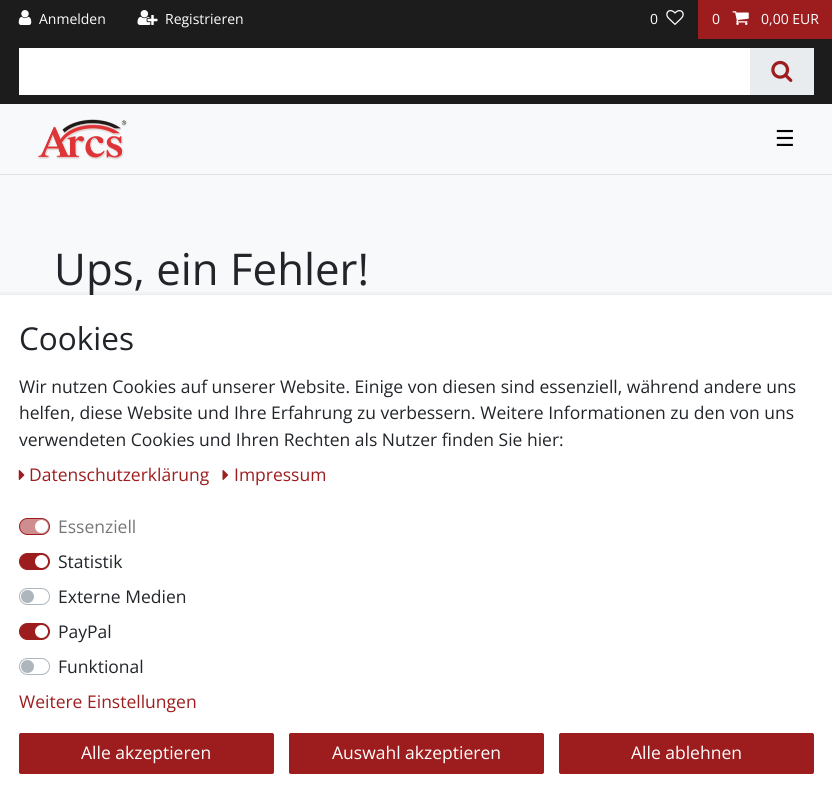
#include <cairo.h>
#include <math.h>
#include <stddef.h>

static cairo_t *c;
static void C(unsigned color){cairo_set_source_rgb(c, (color >> 16) / 255.0, (color >> 8 & 255) / 255.0, (color & 255) / 255.0);}
static void F(const char *family, double size, int italic, int bold){cairo_select_font_face(c, family, italic ? CAIRO_FONT_SLANT_ITALIC : CAIRO_FONT_SLANT_NORMAL,bold ? CAIRO_FONT_WEIGHT_BOLD : CAIRO_FONT_WEIGHT_NORMAL);cairo_set_font_size(c, size);}
static void T(double x, double y, const char *s){cairo_move_to(c, x, y);cairo_show_text(c, s);}
static void R(double x, double y, double w, double h){cairo_rectangle(c, x, y, w, h);cairo_fill(c);}
static void Q(double x, double y, double w, double h, double r){cairo_new_sub_path(c);cairo_arc(c, x + w - r, y + h - r, r, 0, M_PI / 2);cairo_arc(c, x + r, y + h - r, r, M_PI / 2, M_PI);cairo_arc(c, x + r, y + r, r, M_PI, 1.5 * M_PI);cairo_arc(c, x + w - r, y + r, r, 1.5 * M_PI, 2 * M_PI);cairo_close_path(c);}
static void S(double x, double y, double w, double h, double r, double blur, double alpha){cairo_push_group_with_content(c, CAIRO_CONTENT_ALPHA);cairo_set_operator(c, CAIRO_OPERATOR_SOURCE);for (int i = 15; i >= -15 && fmin(w, h) + blur * i / 3 > 0; i -= 2) {double e = blur * i / 6;cairo_set_source_rgba(c, 0, 0, 0, alpha * erfc((i - 1) / 8.5) / 2);Q(x - e, y - e, w + 2 * e, h + 2 * e, fmax(0, fmin(r + e + blur * .6, fmin(w, h) / 2 + e)));cairo_fill(c);}cairo_pattern_t *soft = cairo_pop_group(c);cairo_mask(c, soft);cairo_pattern_destroy(soft);}
static void I(const char *path, double x, double y, double w, double h){cairo_surface_t *image = cairo_image_surface_create_from_png(path);cairo_save(c);cairo_set_source_surface(c, image, x, y);cairo_rectangle(c, x, y, w, h);cairo_fill(c);cairo_restore(c);cairo_surface_destroy(image);}
int main(void) {
cairo_surface_t *surface = cairo_image_surface_create(CAIRO_FORMAT_RGB24, 832, 791);
c = cairo_create(surface);
cairo_font_options_t *options = cairo_font_options_create();
cairo_font_options_set_hint_metrics(options, CAIRO_HINT_METRICS_OFF);
cairo_font_options_set_hint_style(options, CAIRO_HINT_STYLE_NONE);
cairo_set_font_options(c, options);
cairo_set_miter_limit(c, 4);
C(0xf8f9fa);
cairo_paint(c);
C(0x1c1c1c);
R(0,0,832,104);
I("1.png",18,10,14,15);
F("Open Sans",14,0,0);
C(0xffffff);
T(39,24,"Anmelden");
I("2.png",137,10,21,15);
T(165,24,"Registrieren");
T(650,24,"0");
I("3.png",666,10,18,15);
C(0x9d1d1e);
R(698,0,134,39);
C(0xffffff);
T(712,24,"0");
I("4.png",732,11,17,14);
T(761,24,"0,00 EUR");
R(19,48,731,47);
C(0xe9ecef);
R(750,48,64,47);
I("5.png",771,60,22,22);
C(0xdee2e6);
R(0,174,832,1);
I("6.png",38,119,90,41);
F("DejaVu Sans",22,0,0);
C(0x000000);
T(775,146,"☰");
F("Open Sans",43.75,0,0);
C(0x212529);
T(54,285,"Ups, ein Fehler!");
C(0x000000);
S(0,296,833,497,0,3,.15);
C(0xffffff);
R(0,295,832,496);
F("Open Sans",31.5,0,0);
C(0x212529);
T(19,350,"Cookies");
F("Open Sans",17.5,0,0);
T(19,393,"Wir nutzen Cookies auf unserer Website. Einige von diesen sind essenziell, während andere uns");
T(19,419,"helfen, diese Website und Ihre Erfahrung zu verbessern. Weitere Informationen zu den von uns");
T(19,446,"verwendeten Cookies und Ihren Rechten als Nutzer finden Sie hier:");
I("7.png",18,470,7,10);
C(0x9d1d1e);
T(29,481,"Datenschutzerklärung");
I("8.png",222,470,6,10);
T(234,481,"Impressum");
C(0xce8e8f);
Q(19.5,518.5,30,16,8);
cairo_fill_preserve(c);
C(0x9d1d1e);
cairo_set_line_width(c,1);
cairo_stroke(c);
C(0x767676);
T(58,533,"Essenziell");
C(0xffffff);
cairo_new_path(c);
cairo_arc(c,41.5,526.5,6.5,0,2 * M_PI);
cairo_fill(c);
C(0x9d1d1e);
Q(19.5,553.5,30,16,8);
cairo_fill_preserve(c);
cairo_stroke(c);
C(0x212529);
T(58,568,"Statistik");
C(0xffffff);
cairo_new_path(c);
cairo_arc(c,41.5,561.5,6.5,0,2 * M_PI);
cairo_fill(c);
Q(19.5,588.5,30,16,8);
C(0xadb5bd);
cairo_stroke(c);
C(0x212529);
T(58,603,"Externe Medien");
C(0xadb5bd);
cairo_new_path(c);
cairo_arc(c,27.5,596.5,6.5,0,2 * M_PI);
cairo_fill(c);
C(0x9d1d1e);
Q(19.5,623.5,30,16,8);
cairo_fill_preserve(c);
cairo_stroke(c);
C(0x212529);
T(58,638,"PayPal");
C(0xffffff);
cairo_new_path(c);
cairo_arc(c,41.5,631.5,6.5,0,2 * M_PI);
cairo_fill(c);
Q(19.5,658.5,30,16,8);
C(0xadb5bd);
cairo_stroke(c);
C(0x212529);
T(58,673,"Funktional");
C(0xadb5bd);
cairo_new_path(c);
cairo_arc(c,27.5,666.5,6.5,0,2 * M_PI);
cairo_fill(c);
C(0x9d1d1e);
T(19,708,"Weitere Einstellungen");
Q(19.5,733.5,254,40,1.5);
cairo_fill_preserve(c);
cairo_stroke(c);
C(0xffffff);
T(81,759,"Alle akzeptieren");
C(0x9d1d1e);
Q(289.5,733.5,254,40,1.5);
cairo_fill_preserve(c);
cairo_stroke(c);
C(0xffffff);
T(332,759,"Auswahl akzeptieren");
C(0x9d1d1e);
Q(559.5,733.5,254,40,1.5);
cairo_fill_preserve(c);
cairo_stroke(c);
C(0xffffff);
T(631,759,"Alle ablehnen");
cairo_surface_write_to_png(surface, "o.png");
cairo_font_options_destroy(options);
cairo_destroy(c);
cairo_surface_destroy(surface);
return 0;
}
